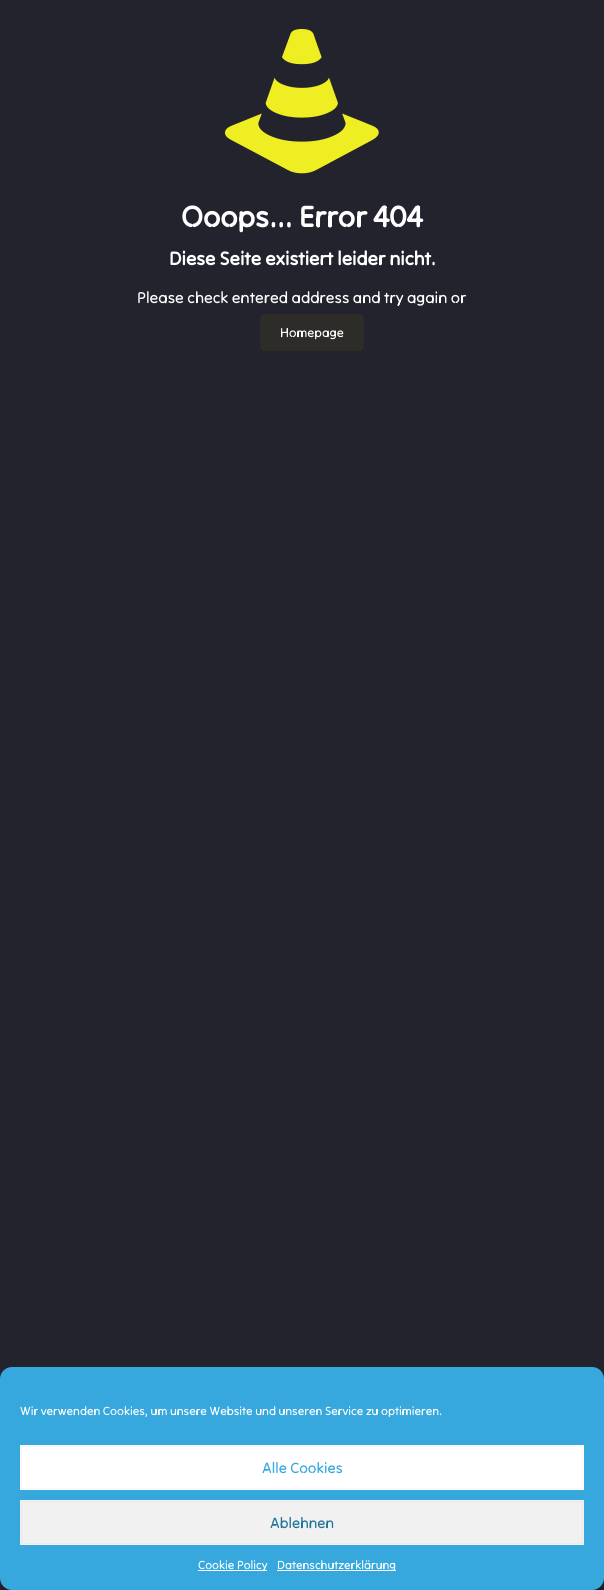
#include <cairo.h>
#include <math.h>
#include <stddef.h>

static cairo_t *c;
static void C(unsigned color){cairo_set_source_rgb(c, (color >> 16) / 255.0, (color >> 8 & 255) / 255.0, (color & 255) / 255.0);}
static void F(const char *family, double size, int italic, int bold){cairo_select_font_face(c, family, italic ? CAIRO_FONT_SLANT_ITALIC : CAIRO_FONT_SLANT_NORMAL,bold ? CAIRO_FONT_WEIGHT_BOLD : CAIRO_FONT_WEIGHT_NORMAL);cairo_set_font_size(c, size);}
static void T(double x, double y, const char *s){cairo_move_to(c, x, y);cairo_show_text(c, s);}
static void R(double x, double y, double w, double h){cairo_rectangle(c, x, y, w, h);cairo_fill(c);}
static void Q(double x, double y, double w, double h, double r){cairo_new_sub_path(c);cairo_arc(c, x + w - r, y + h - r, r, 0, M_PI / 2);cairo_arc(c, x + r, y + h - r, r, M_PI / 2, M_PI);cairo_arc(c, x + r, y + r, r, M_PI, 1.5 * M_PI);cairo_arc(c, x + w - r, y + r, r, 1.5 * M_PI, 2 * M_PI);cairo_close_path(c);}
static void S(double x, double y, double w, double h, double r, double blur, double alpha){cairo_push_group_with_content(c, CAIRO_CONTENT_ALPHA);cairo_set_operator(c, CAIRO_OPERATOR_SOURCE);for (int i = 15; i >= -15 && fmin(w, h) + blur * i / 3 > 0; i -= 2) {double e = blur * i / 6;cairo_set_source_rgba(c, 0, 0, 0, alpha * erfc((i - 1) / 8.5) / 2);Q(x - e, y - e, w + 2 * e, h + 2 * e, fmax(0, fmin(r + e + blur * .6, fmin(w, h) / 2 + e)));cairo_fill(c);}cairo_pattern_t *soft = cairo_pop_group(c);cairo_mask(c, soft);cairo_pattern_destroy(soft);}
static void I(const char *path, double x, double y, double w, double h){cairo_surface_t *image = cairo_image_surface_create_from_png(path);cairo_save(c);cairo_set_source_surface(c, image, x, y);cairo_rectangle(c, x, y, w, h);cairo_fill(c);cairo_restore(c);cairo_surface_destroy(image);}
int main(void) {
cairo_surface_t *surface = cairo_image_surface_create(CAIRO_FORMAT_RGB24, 604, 1590);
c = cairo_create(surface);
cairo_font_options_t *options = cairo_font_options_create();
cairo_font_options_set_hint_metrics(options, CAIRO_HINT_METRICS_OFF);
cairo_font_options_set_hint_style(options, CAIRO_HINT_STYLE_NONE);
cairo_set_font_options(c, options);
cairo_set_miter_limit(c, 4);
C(0x23232e);
cairo_paint(c);
I("1.png",225,29,154,145);
F("Tilt Neon",30,0,1);
C(0xffffff);
T(181,227,"Ooops... Error 404");
F("Tilt Neon",19,0,1);
T(169,265,"Diese Seite existiert leider nicht.");
F("Tilt Neon",16,0,0);
T(137,303,"Please check entered address and try again or");
C(0x2d2c28);
Q(260,314,104,37,5);
cairo_fill(c);
F("Tilt Neon",13,0,0);
C(0xffffff);
T(280,337,"Homepage");
C(0x000000);
S(0,1373,604,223,12,3,.23);
C(0x37a8de);
Q(0,1367,604,223,12);
cairo_fill(c);
F("Tilt Neon",12,0,0);
C(0xffffff);
T(20,1415,"Wir verwenden Cookies, um unsere Website und unseren Service zu optimieren.");
R(20,1445,564,45);
cairo_rectangle(c,21.5,1446.5,561,42);
C(0xf7f7f7);
cairo_set_line_width(c,1);
cairo_stroke(c);
F("Tilt Neon",15,0,0);
C(0x37a8de);
T(262,1473,"Alle Cookies");
C(0xf1f1f1);
R(20,1500,564,45);
cairo_rectangle(c,21.5,1501.5,561,42);
C(0xeaeaea);
cairo_stroke(c);
C(0x21759b);
T(270,1528,"Ablehnen");
C(0xffffff);
R(198,1570,69,1);
F("Tilt Neon",12,0,0);
T(198,1569,"Cookie Policy");
R(277,1570,119,1);
T(277,1569,"Datenschutzerklärung");
cairo_surface_write_to_png(surface, "o.png");
cairo_font_options_destroy(options);
cairo_destroy(c);
cairo_surface_destroy(surface);
return 0;
}
